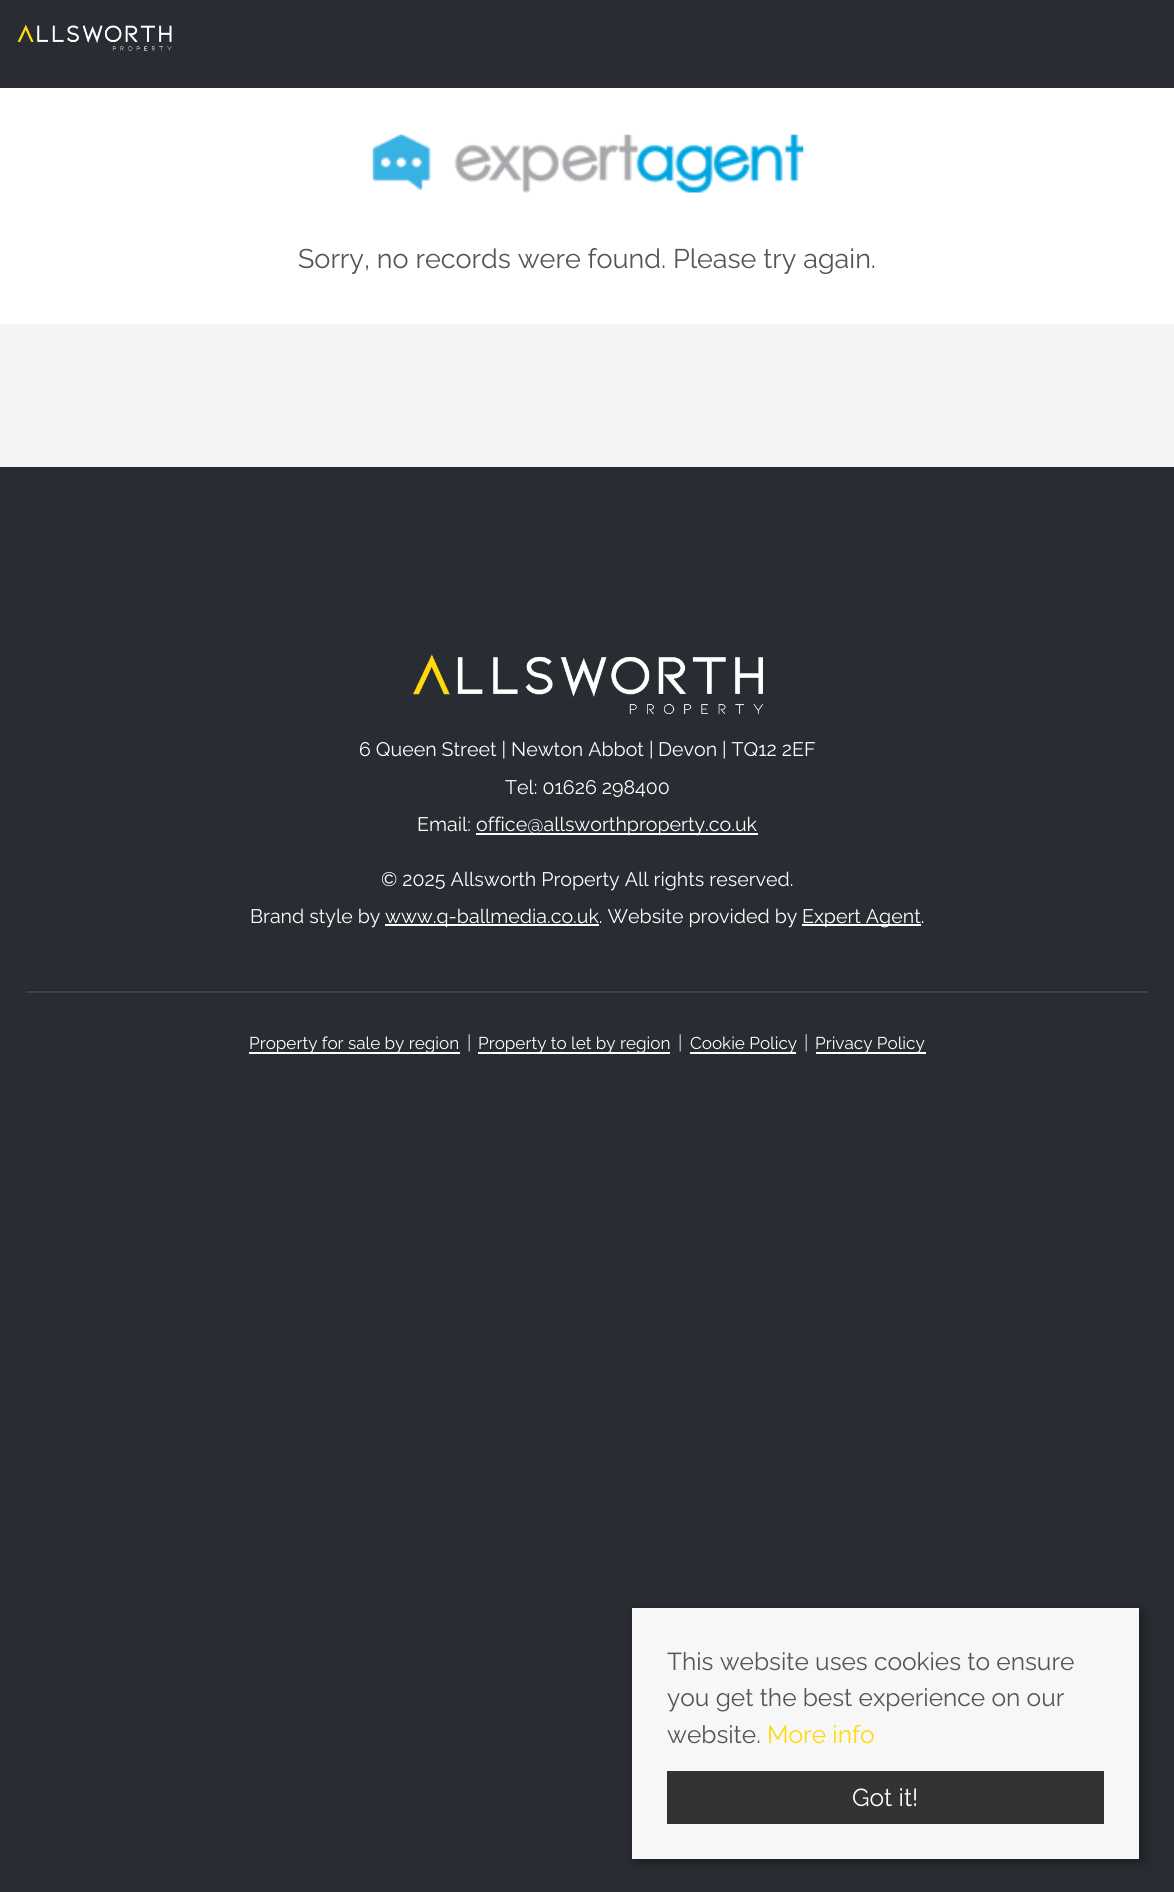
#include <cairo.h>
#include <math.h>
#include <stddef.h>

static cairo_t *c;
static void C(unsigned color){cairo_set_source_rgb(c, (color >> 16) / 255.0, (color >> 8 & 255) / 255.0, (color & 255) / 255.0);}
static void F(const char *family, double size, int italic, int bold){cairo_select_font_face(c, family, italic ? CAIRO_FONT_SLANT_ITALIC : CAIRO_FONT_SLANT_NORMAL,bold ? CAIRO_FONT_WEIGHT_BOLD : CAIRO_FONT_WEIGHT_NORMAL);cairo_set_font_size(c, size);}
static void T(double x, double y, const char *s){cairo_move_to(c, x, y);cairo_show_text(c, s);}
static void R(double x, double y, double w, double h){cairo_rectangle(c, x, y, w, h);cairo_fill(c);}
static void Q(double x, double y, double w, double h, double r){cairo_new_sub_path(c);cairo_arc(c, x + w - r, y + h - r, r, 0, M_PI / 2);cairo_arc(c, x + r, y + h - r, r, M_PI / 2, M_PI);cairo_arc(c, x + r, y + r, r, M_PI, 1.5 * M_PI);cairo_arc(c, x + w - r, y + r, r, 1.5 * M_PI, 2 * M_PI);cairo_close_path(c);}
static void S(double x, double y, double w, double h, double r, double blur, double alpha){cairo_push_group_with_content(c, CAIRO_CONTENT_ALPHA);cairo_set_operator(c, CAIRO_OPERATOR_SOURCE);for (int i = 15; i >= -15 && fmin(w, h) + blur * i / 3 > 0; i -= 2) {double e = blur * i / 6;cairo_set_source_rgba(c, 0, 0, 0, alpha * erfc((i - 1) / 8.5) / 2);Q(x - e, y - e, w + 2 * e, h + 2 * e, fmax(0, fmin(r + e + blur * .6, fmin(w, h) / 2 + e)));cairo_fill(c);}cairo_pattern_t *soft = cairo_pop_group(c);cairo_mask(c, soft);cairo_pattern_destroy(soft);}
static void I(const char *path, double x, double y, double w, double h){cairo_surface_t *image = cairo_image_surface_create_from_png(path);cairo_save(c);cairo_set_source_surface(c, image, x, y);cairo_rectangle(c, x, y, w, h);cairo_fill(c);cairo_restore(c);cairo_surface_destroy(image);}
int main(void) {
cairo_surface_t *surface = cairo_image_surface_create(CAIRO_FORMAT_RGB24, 1174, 1892);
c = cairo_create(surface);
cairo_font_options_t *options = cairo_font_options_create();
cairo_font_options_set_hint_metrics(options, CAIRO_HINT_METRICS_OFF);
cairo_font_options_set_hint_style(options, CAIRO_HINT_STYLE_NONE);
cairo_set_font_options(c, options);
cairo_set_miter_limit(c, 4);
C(0x292d33);
cairo_paint(c);
C(0xffffff);
R(0,88,1174,236);
I("1.png",17,24,155,27);
I("2.png",372,134,432,59);
F("Raleway",26.95,0,0);
C(0x555555);
T(298,268,"Sorry, no records were found. Please try again.");
C(0xf4f4f4);
R(0,324,1174,143);
I("3.png",413,654,350,60);
F("Raleway",19.6,0,0);
C(0xffffff);
T(359,756,"6 Queen Street | Newton Abbot |");
T(658,756,"Devon | TQ12 2EF");
T(505,794,"Tel: 01626 298400");
T(417,831,"Email:");
R(476,833,282,2);
T(476,831,"office@allsworthproperty.co.uk");
T(381,886,"© 2025 Allsworth Property All rights reserved.");
T(250,923,"Brand style by");
R(385,924,214,2);
T(385,923,"www.q-ballmedia.co.uk. Website provided by");
R(802,924,119,2);
T(802,923,"Expert Agent.");
C(0x25292e);
R(26,989,1122,2);
C(0x3e4247);
R(26,991,1122,2);
C(0xffffff);
R(249,1052,211,2);
F("Raleway",17.1,0,0);
T(249,1049,"Property for sale by region");
F("Raleway",19,0,0);
C(0xd4d5d6);
T(467,1049,"|");
C(0xffffff);
R(478,1052,192,2);
F("Raleway",17.1,0,0);
T(478,1049,"Property to let by region");
F("Raleway",19,0,0);
C(0xd4d5d6);
T(678,1049,"|");
C(0xffffff);
R(690,1052,106,2);
F("Raleway",17.1,0,0);
T(690,1049,"Cookie Policy");
F("Raleway",19,0,0);
C(0xd4d5d6);
T(804,1049,"|");
C(0xffffff);
R(816,1052,110,2);
F("Raleway",17.1,0,0);
T(815,1049,"Privacy Policy");
C(0x000000);
S(635,1612,508,250,0,6,.4);
C(0xf7f7f7);
R(632,1608,507,251);
F("Raleway",24.5,0,0);
C(0x555555);
T(667,1670,"This website uses cookies to ensure");
T(667,1706,"you get the best experience on our");
T(667,1743,"website.");
C(0xffd90e);
T(767,1743,"More info");
C(0x333333);
R(667,1771,437,53);
C(0xffffff);
T(852,1806,"Got it!");
cairo_surface_write_to_png(surface, "o.png");
cairo_font_options_destroy(options);
cairo_destroy(c);
cairo_surface_destroy(surface);
return 0;
}
